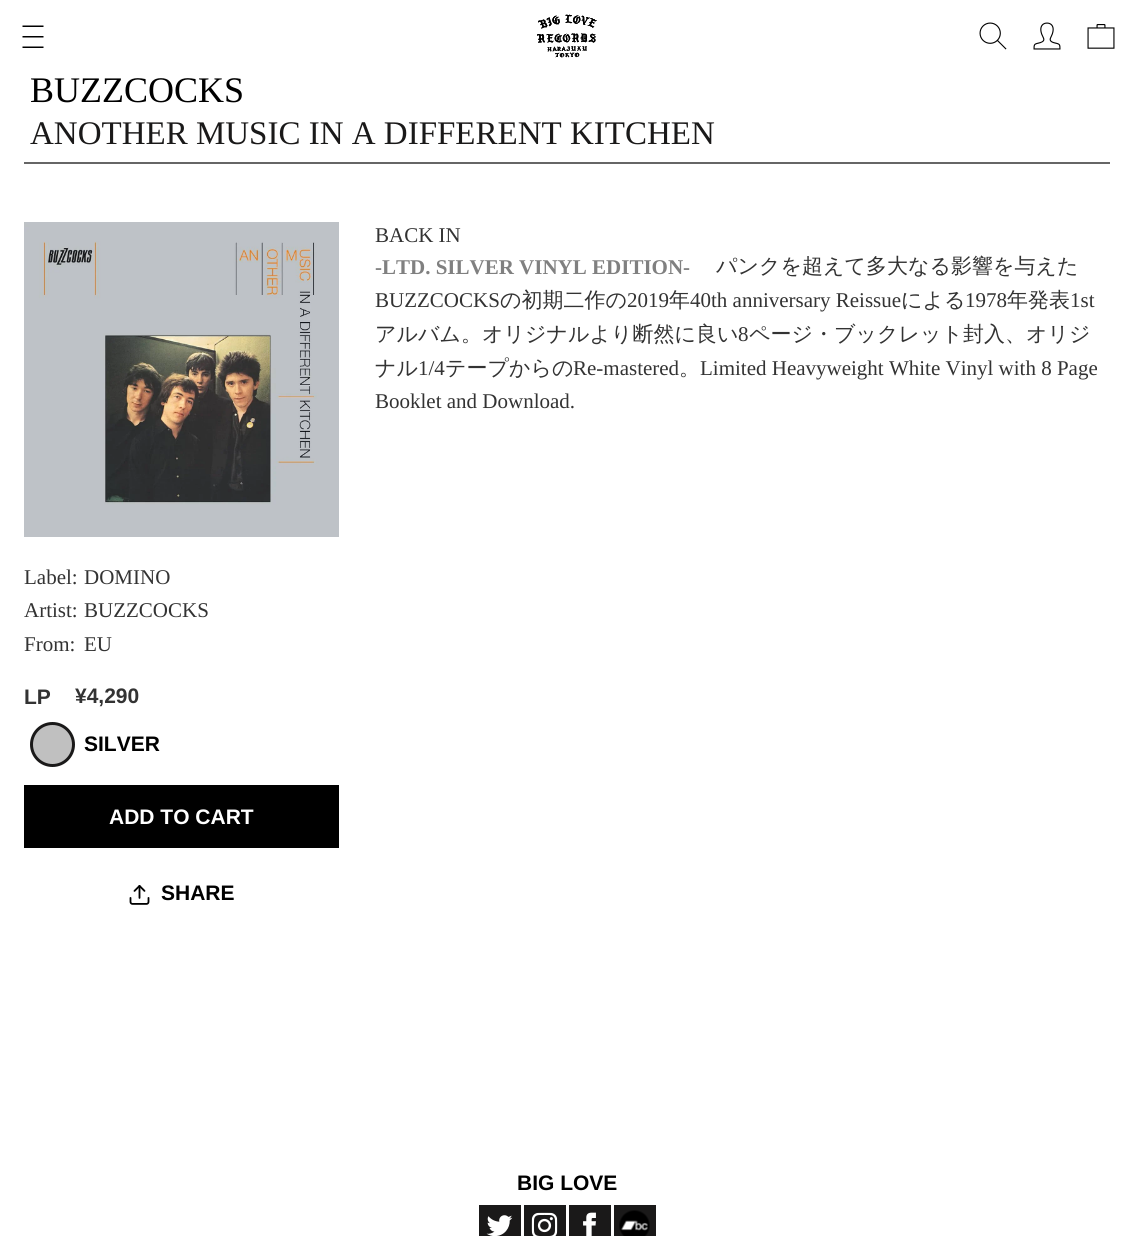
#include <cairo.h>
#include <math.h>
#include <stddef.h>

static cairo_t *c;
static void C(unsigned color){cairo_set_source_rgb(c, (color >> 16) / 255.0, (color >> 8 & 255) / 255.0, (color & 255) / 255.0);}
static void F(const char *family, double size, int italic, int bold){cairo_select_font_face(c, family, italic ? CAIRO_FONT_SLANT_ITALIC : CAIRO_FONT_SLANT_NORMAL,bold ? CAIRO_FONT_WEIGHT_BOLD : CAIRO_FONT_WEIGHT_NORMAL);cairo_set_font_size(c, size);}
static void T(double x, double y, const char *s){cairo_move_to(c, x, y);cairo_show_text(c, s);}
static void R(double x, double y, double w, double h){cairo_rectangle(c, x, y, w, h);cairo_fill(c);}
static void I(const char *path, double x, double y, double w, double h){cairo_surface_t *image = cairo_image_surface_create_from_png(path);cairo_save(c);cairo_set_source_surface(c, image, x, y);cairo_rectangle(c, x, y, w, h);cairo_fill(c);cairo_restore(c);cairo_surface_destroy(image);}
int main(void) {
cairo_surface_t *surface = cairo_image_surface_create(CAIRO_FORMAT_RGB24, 1134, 1236);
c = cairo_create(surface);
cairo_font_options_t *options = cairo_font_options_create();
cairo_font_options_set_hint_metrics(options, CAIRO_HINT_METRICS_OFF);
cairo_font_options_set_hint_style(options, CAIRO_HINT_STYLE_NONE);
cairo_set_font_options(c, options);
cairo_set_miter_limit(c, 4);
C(0xffffff);
cairo_paint(c);
I("1.png",22,25,22,23);
I("2.png",537,14,60,44);
I("3.png",979,22,28,28);
I("4.png",1033,22,28,28);
I("5.png",1087,24,28,25);
C(0x666666);
R(24,162,1086,2);
F("Liberation Serif",36,0,0);
C(0x000000);
T(30,102,"BUZZCOCKS");
F("Liberation Serif",33,0,0);
C(0x1a1919);
T(30,144,"ANOTHER MUSIC IN A DIFFERENT KITCHEN");
F("Liberation Serif",21,0,0);
C(0x333333);
T(375,242,"BACK IN");
F("Liberation Serif",21,0,1);
C(0x808080);
T(375,274,"-LTD. SILVER VINYL EDITION-");
F("WenQuanYi Zen Hei Medium",21,0,0);
C(0x333333);
T(716,273,"パンクを超えて多大なる影響を与えた");
F("Liberation Serif",21,0,0);
T(375,307,"BUZZCOCKS");
F("WenQuanYi Zen Hei Medium",21,0,0);
T(500,307,"の初期二作の");
F("Liberation Serif",21,0,0);
T(627,307,"2019");
F("WenQuanYi Zen Hei Medium",21,0,0);
T(669,307,"年");
F("Liberation Serif",21,0,0);
T(690,307,"40th anniversary Reissue");
F("WenQuanYi Zen Hei Medium",21,0,0);
T(901,307,"による");
F("Liberation Serif",21,0,0);
T(965,307,"1978");
F("WenQuanYi Zen Hei Medium",21,0,0);
T(1007,307,"年発表");
F("Liberation Serif",21,0,0);
T(1070,307,"1st");
F("WenQuanYi Zen Hei Medium",21,0,0);
T(375,341,"アルバム。オリジナルより断然に良い");
F("Liberation Serif",21,0,0);
T(738,341,"8");
F("WenQuanYi Zen Hei Medium",21,0,0);
T(749,341,"ページ・ブックレット封入、オリジ");
T(375,375,"ナル");
F("Liberation Serif",21,0,0);
T(418,375,"1/4");
F("WenQuanYi Zen Hei Medium",21,0,0);
T(445,375,"テープからの");
F("Liberation Serif",21,0,0);
T(573,375,"Re-mastered");
F("WenQuanYi Zen Hei Medium",21,0,0);
T(679,375,"。");
F("Liberation Serif",21,0,0);
T(700,375,"Limited Heavyweight White Vinyl with 8 Page");
T(375,408,"Booklet and Download.");
I("6.png",24,222,315,315);
T(24,584,"Label:");
T(84,584,"DOMINO");
T(24,617,"Artist:");
T(84,617,"BUZZCOCKS");
T(24,651,"From:");
T(84,651,"EU");
F("Liberation Sans",21,0,1);
T(24,704,"LP");
T(75,703,"¥4,290");
C(0xc0c0c0);
cairo_new_path(c);
cairo_arc(c,52.5,744.5,21,0,2 * M_PI);
cairo_fill_preserve(c);
C(0x1a1919);
cairo_set_line_width(c,3);
cairo_stroke(c);
C(0x000000);
T(84,751,"SILVER");
R(24,785,315,63);
C(0xffffff);
T(109,824,"ADD TO CART");
I("7.png",129,885,21,20);
C(0x000000);
T(161,900,"SHARE");
T(517,1190,"BIG LOVE");
C(0x1a1919);
R(479,1205,42,31);
I("8.png",486,1215,27,21);
R(524,1205,42,31);
I("9.png",531,1212,27,24);
R(569,1205,42,31);
I("10.png",583,1212,13,24);
R(614,1205,42,31);
I("11.png",619,1210,31,26);
cairo_surface_write_to_png(surface, "o.png");
cairo_font_options_destroy(options);
cairo_destroy(c);
cairo_surface_destroy(surface);
return 0;
}
